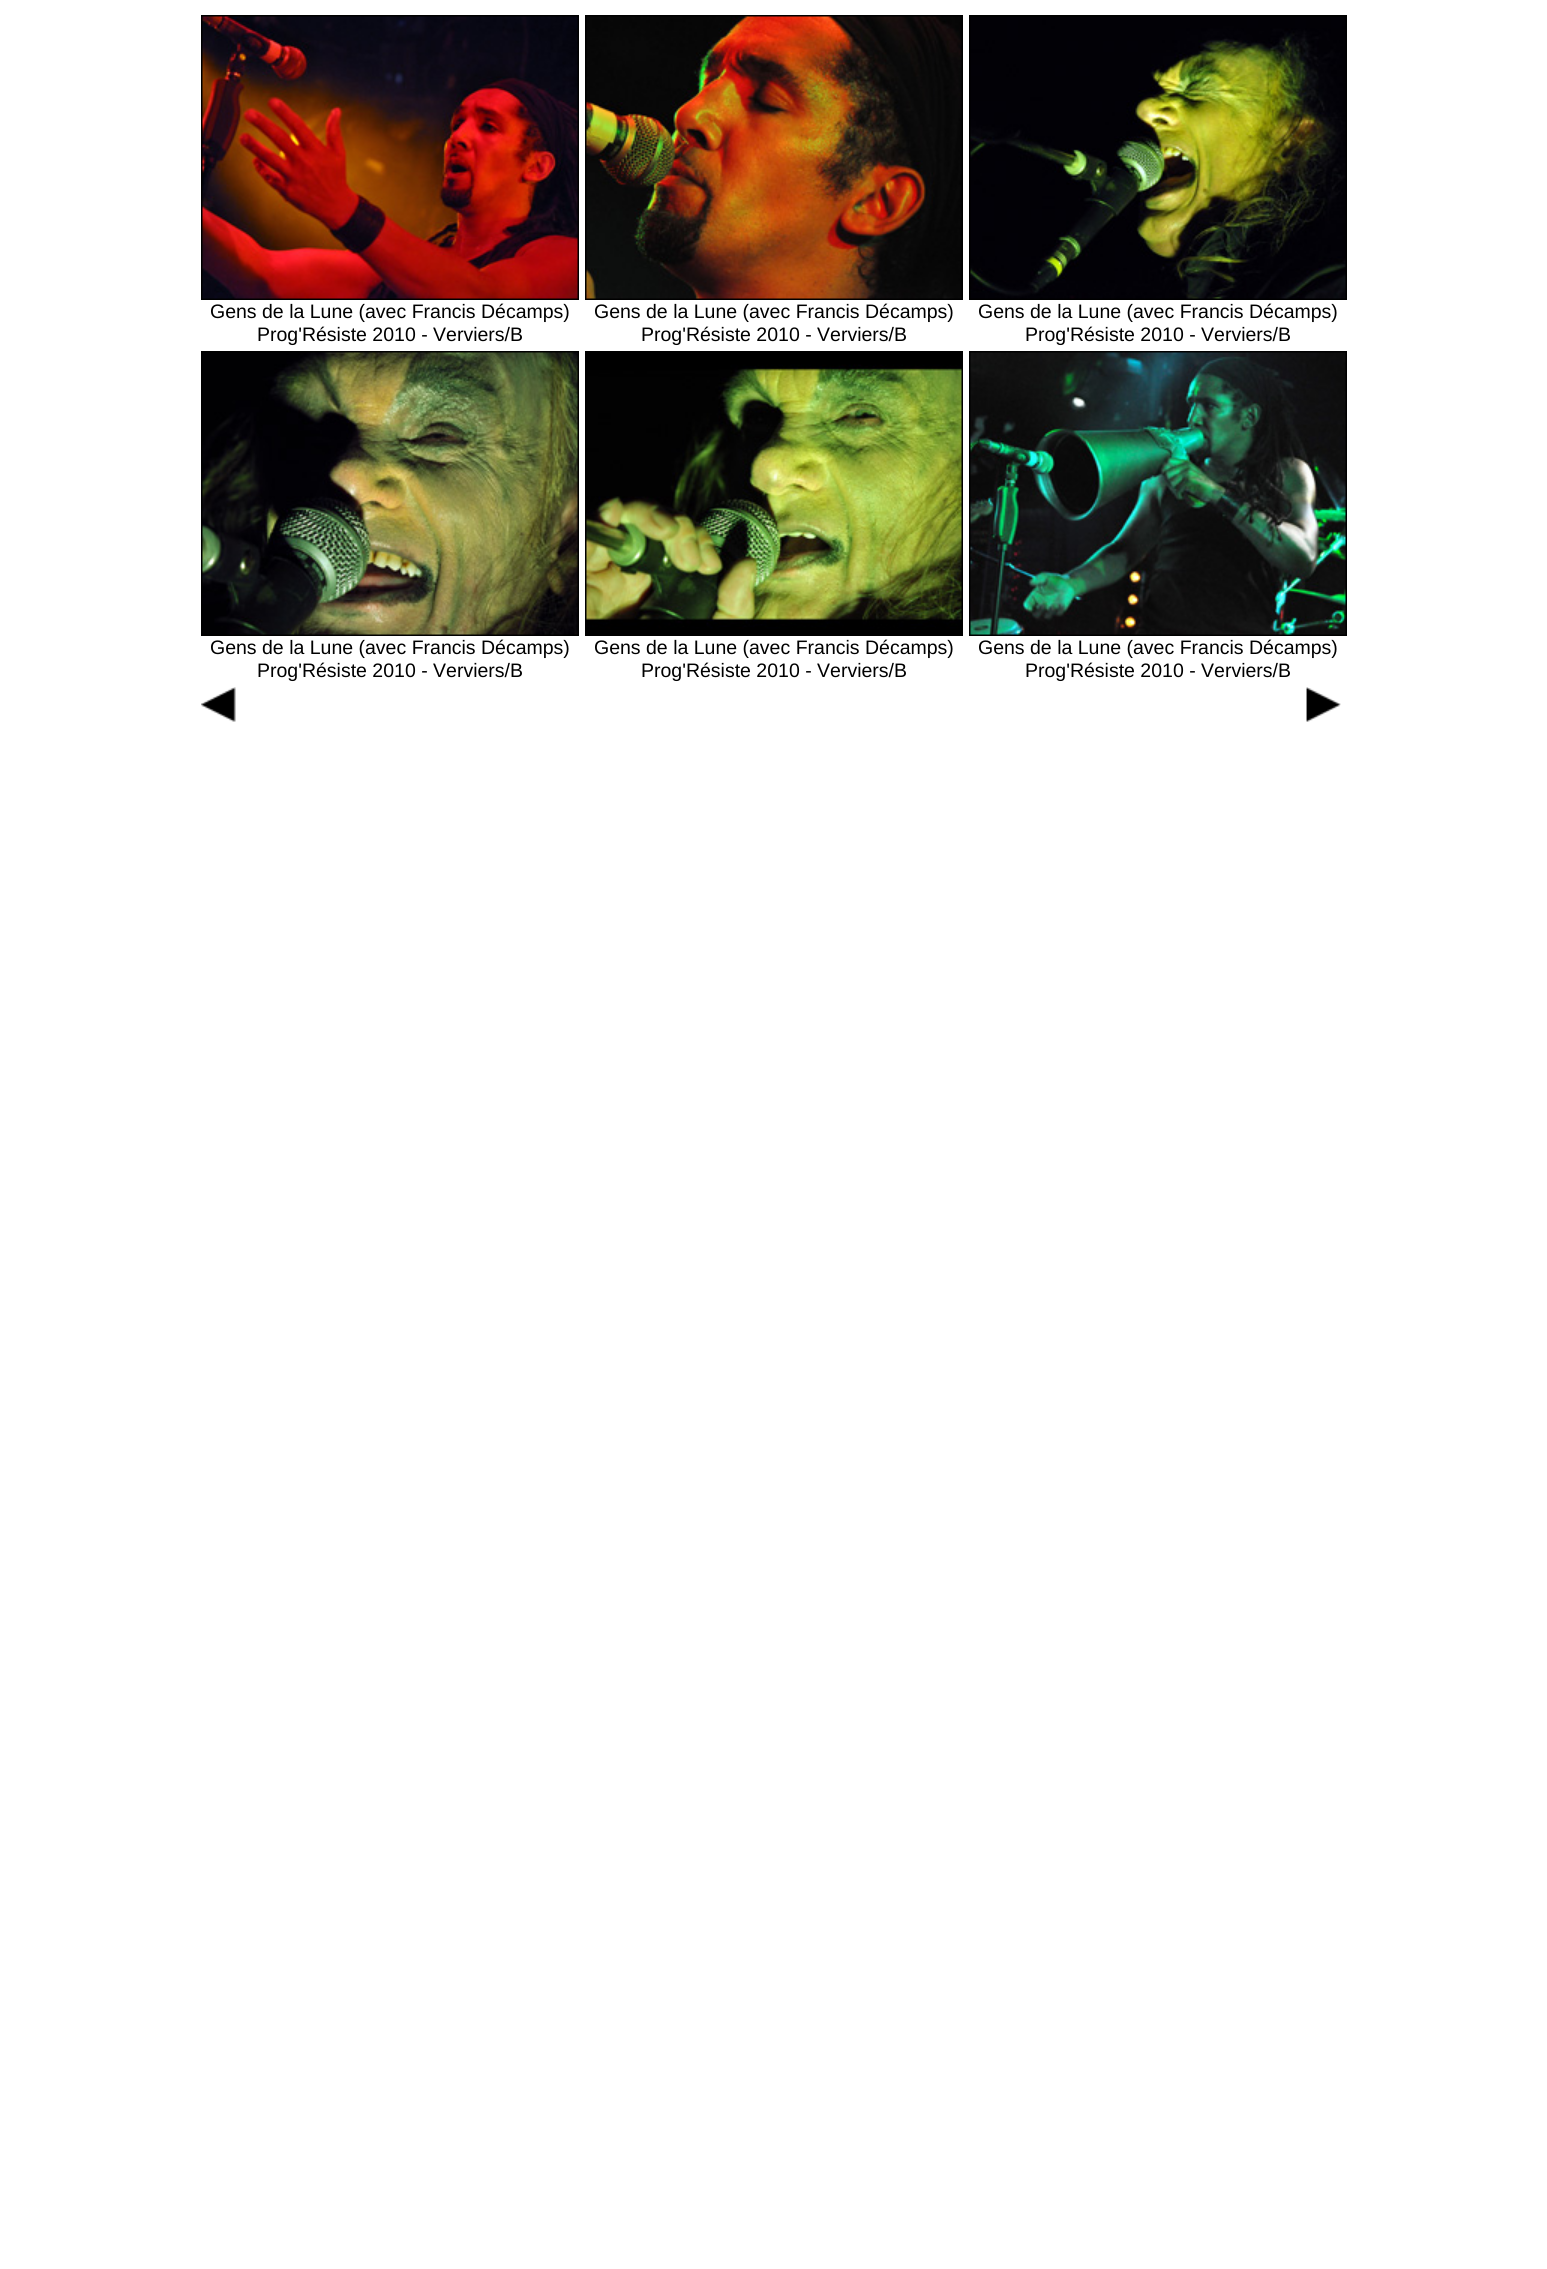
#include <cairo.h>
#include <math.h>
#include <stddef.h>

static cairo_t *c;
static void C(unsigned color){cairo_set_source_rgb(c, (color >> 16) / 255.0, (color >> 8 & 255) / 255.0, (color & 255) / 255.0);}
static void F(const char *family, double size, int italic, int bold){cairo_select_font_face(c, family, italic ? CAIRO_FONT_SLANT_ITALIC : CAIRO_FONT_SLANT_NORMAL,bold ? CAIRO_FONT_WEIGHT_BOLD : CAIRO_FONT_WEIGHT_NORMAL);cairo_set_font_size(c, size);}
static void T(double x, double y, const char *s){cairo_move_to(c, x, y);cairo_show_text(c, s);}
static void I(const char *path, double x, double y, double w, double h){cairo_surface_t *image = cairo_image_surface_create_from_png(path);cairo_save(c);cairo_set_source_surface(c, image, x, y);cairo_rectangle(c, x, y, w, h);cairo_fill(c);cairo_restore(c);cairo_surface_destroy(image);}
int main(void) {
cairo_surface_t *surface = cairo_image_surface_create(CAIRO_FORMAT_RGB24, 1547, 2269);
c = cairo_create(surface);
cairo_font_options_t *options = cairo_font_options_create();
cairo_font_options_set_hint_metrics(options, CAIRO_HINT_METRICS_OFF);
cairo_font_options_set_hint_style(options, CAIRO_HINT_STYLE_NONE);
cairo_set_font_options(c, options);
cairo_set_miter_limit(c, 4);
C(0xffffff);
cairo_paint(c);
cairo_rectangle(c,202,16,376,283);
C(0x000000);
cairo_stroke(c);
I("1.png",202,16,376,283);
F("Liberation Sans",19.5,0,0);
T(210,318,"Gens de la Lune (avec Francis Décamps)");
T(257,341,"Prog'Résiste 2010 - Verviers/B");
cairo_rectangle(c,586,16,376,283);
cairo_stroke(c);
I("2.png",586,16,376,283);
T(594,318,"Gens de la Lune (avec Francis Décamps)");
T(641,341,"Prog'Résiste 2010 - Verviers/B");
cairo_rectangle(c,970,16,376,283);
cairo_stroke(c);
I("3.png",970,17,376,282);
T(978,318,"Gens de la Lune (avec Francis Décamps)");
T(1025,341,"Prog'Résiste 2010 - Verviers/B");
cairo_rectangle(c,202,352,376,283);
cairo_stroke(c);
I("4.png",202,352,376,283);
T(210,654,"Gens de la Lune (avec Francis Décamps)");
T(257,677,"Prog'Résiste 2010 - Verviers/B");
cairo_rectangle(c,586,352,376,283);
cairo_stroke(c);
I("5.png",586,353,376,281);
T(594,654,"Gens de la Lune (avec Francis Décamps)");
T(641,677,"Prog'Résiste 2010 - Verviers/B");
cairo_rectangle(c,970,352,376,283);
cairo_stroke(c);
I("6.png",970,352,376,283);
T(978,654,"Gens de la Lune (avec Francis Décamps)");
T(1025,677,"Prog'Résiste 2010 - Verviers/B");
I("7.png",201,687,35,35);
I("8.png",1306,687,35,35);
cairo_surface_write_to_png(surface, "o.png");
cairo_font_options_destroy(options);
cairo_destroy(c);
cairo_surface_destroy(surface);
return 0;
}
